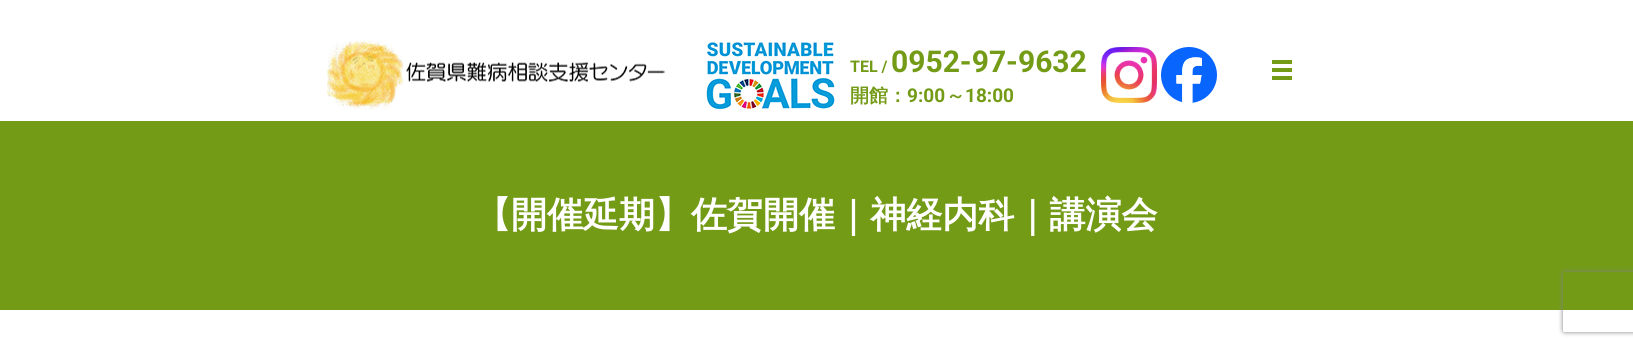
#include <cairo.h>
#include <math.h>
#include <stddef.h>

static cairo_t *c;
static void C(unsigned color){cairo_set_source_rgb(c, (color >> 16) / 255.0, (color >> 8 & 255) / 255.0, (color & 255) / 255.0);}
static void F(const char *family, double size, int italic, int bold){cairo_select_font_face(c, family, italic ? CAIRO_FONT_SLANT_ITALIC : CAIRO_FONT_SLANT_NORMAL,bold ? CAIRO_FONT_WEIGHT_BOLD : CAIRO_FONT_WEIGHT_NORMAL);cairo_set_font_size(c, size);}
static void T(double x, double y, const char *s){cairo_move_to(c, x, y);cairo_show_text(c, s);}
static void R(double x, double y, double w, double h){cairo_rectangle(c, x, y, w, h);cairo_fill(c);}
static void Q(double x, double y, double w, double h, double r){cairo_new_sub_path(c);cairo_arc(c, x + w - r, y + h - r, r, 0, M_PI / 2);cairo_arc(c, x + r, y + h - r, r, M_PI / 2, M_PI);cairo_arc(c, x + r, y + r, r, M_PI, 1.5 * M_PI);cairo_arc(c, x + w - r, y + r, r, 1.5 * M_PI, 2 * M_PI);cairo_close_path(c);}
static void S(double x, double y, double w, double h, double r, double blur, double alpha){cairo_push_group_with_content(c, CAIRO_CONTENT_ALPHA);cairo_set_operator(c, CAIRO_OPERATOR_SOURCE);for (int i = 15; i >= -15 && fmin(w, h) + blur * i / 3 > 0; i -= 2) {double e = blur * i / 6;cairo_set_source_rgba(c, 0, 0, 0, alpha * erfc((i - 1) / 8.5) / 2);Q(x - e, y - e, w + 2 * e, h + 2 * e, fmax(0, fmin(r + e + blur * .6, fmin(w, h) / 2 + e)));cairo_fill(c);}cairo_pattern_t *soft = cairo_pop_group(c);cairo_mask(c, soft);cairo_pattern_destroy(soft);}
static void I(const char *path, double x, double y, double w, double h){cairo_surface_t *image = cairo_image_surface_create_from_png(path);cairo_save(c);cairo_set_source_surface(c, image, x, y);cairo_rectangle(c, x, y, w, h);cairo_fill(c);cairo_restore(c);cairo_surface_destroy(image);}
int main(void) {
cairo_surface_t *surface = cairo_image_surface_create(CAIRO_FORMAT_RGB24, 1633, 346);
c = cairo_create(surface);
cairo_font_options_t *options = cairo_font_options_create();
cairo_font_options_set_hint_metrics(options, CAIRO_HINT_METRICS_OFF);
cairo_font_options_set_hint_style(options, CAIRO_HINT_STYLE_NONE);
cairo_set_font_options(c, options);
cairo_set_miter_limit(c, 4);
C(0xffffff);
cairo_paint(c);
I("1.png",327,40,338,70);
I("2.png",706,41,129,69);
F("Roboto",16,0,1);
C(0x739b16);
T(850,72,"TEL /");
F("Roboto",30,0,1);
T(891,72,"0952-97-9632");
F("WenQuanYi Zen Hei",19,0,1);
T(850,102,"開館：");
F("Roboto",19,0,1);
T(907,102,"9:00");
F("WenQuanYi Zen Hei",19,0,1);
T(946,102,"～");
F("Roboto",19,0,1);
T(965,102,"18:00");
I("3.png",1101,47,56,56);
I("4.png",1161,47,56,56);
R(1272,60,20,4);
R(1272,68,20,4);
R(1272,76,20,4);
R(0,121,1633,189);
F("WenQuanYi Zen Hei",36,0,1);
C(0xffffff);
T(475,227,"【開催延期】佐賀開催｜神経内科｜講演会");
cairo_save(c);
cairo_set_fill_rule(c,CAIRO_FILL_RULE_EVEN_ODD);
cairo_new_path(c);
cairo_move_to(c,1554,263);
cairo_line_to(c,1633,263);
cairo_line_to(c,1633,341);
cairo_line_to(c,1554,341);
cairo_close_path(c);
cairo_move_to(c,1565,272);
cairo_line_to(c,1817,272);
cairo_curve_to(c,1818,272,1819,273,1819,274);
cairo_line_to(c,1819,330);
cairo_curve_to(c,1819,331,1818,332,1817,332);
cairo_line_to(c,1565,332);
cairo_curve_to(c,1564,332,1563,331,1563,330);
cairo_line_to(c,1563,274);
cairo_curve_to(c,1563,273,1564,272,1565,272);
cairo_close_path(c);
cairo_clip(c);
C(0x808080);
S(1563,272,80,60,2,2.5,1);
cairo_restore(c);
cairo_surface_write_to_png(surface, "o.png");
cairo_font_options_destroy(options);
cairo_destroy(c);
cairo_surface_destroy(surface);
return 0;
}
